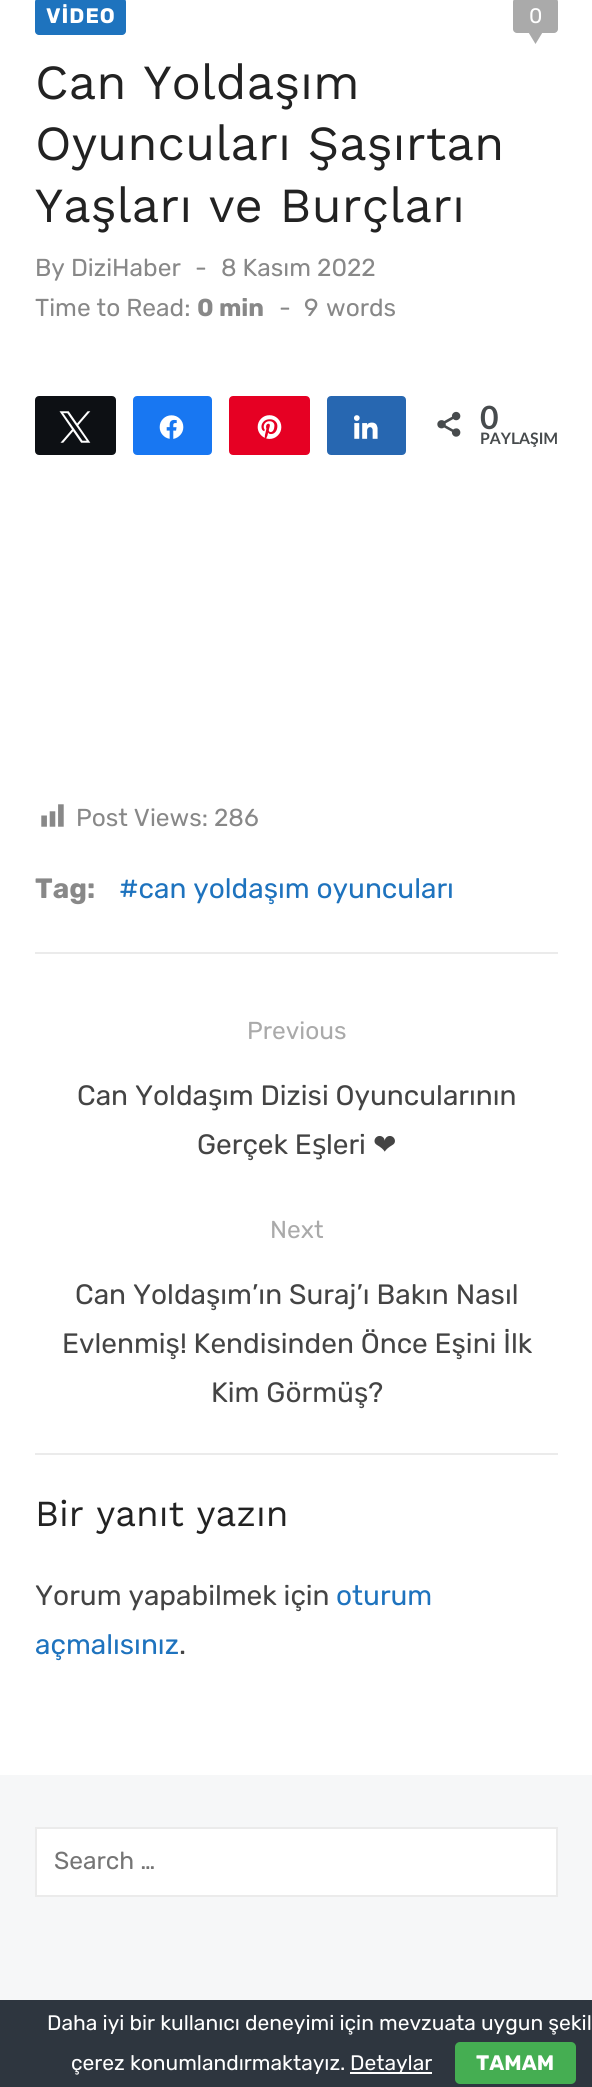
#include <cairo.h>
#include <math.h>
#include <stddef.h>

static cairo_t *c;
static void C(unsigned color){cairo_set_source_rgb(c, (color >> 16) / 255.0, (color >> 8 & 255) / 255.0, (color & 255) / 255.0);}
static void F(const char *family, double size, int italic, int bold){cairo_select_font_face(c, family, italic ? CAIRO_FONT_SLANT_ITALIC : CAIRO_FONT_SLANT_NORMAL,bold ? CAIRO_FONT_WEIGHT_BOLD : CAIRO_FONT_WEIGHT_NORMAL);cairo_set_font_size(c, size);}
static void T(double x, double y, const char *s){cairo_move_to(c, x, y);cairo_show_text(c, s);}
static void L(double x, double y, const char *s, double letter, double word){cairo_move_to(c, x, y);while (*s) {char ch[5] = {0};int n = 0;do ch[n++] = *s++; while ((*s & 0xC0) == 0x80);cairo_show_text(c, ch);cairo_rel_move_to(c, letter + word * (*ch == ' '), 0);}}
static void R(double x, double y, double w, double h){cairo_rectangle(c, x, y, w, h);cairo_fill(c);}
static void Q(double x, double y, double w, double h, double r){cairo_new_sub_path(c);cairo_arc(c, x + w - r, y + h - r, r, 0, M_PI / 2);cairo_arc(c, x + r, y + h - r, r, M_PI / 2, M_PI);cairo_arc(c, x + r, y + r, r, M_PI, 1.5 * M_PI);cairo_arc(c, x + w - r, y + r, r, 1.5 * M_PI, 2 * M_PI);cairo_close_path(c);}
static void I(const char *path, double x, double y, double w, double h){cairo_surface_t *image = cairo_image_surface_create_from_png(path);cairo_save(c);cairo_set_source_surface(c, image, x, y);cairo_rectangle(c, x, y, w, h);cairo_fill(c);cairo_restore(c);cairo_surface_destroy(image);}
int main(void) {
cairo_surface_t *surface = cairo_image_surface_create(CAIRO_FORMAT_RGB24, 592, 2087);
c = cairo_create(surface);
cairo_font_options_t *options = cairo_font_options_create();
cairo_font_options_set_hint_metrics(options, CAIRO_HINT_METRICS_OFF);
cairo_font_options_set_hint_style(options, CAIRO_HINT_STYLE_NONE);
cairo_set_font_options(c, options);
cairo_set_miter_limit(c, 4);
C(0xffffff);
cairo_paint(c);
C(0x1e73be);
Q(35,-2,91,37,4);
cairo_fill(c);
F("Rubik",21,0,1);
C(0xffffff);
L(46,23,"VİDEO",1,0);
C(0xaaaaaa);
Q(513,-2,45,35,4);
cairo_fill(c);
F("Rubik",21,0,0);
C(0xffffff);
T(529,23,"0");
C(0xaaaaaa);
cairo_new_path(c);
cairo_move_to(c,527,30);
cairo_line_to(c,544,30);
cairo_line_to(c,535.5,44);
cairo_close_path(c);
cairo_fill(c);
F("Work Sans",49,0,0);
C(0x222222);
T(35,99,"Can Yoldaşım");
T(35,160,"Oyuncuları Şaşırtan");
T(35,222,"Yaşları ve Burçları");
F("Rubik",24.5,0,0);
C(0x888888);
T(35,276,"By DiziHaber");
T(195,276,"-");
T(221,276,"8 Kasım 2022");
T(35,316,"Time to Read:");
F("Rubik",24.5,0,1);
T(197,316,"0 min");
F("Rubik",24.5,0,0);
T(279,316,"-");
T(304,316,"9");
T(326,316,"words");
C(0x0d1014);
Q(36,397,79,57,3);
cairo_fill_preserve(c);
cairo_stroke(c);
I("1.png",59,411,32,32);
C(0x1877f2);
Q(134,397,77,57,3);
cairo_fill_preserve(c);
cairo_stroke(c);
I("2.png",159,415,25,24);
C(0xe60023);
Q(230,397,79,57,3);
cairo_fill_preserve(c);
cairo_stroke(c);
I("3.png",257,415,25,24);
C(0x2767b1);
Q(328,397,77,57,3);
cairo_fill_preserve(c);
cairo_stroke(c);
I("4.png",354,415,24,24);
I("5.png",437,411,24,26);
F("Lato",32,0,1);
C(0x474b4d);
T(480,429,"0");
F("Lato",15.75,0,1);
T(480,444,"PAYLAŞIM");
I("6.png",41,804,23,23);
F("Rubik",24.5,0,0);
C(0x888888);
T(76,826,"Post Views: 286");
C(0xebebeb);
R(35,952,523,2);
F("Rubik",28,0,1);
C(0x888888);
T(35,898,"Tag:");
F("Rubik",28,0,0);
C(0x1e73be);
T(119,898,"#can yoldaşım oyuncuları");
C(0xebebeb);
R(35,1453,523,2);
F("Rubik",24.5,0,0);
C(0xaaaaaa);
T(247,1039,"Previous");
F("Rubik",28,0,0);
C(0x444444);
T(77,1105,"Can Yolda");
F("DejaVu Sans",28,0,0);
T(208,1105,"ş");
F("Rubik",28,0,0);
T(222,1105,"ım Dizisi Oyuncularının");
T(197,1154,"Gerçek E");
F("DejaVu Sans",28,0,0);
T(312,1154,"ş");
F("Rubik",28,0,0);
T(326,1154,"leri");
F("DejaVu Sans",28,0,0);
T(373,1154,"❤");
F("Rubik",24.5,0,0);
C(0xaaaaaa);
T(270,1238,"Next");
F("Rubik",28,0,0);
C(0x444444);
T(75,1304,"Can Yoldaşım’ın Suraj’ı Bakın Nasıl");
T(62,1353,"Evlenmiş! Kendisinden Önce Eşini İlk");
T(211,1402,"Kim Görmüş?");
F("Work Sans",36.75,0,0);
C(0x222222);
T(35,1526,"Bir yanıt yazın");
F("Rubik",28,0,0);
C(0x444444);
T(35,1605,"Yorum yapabilmek için");
C(0x1e73be);
T(336,1605,"oturum");
T(35,1654,"açmalısınız");
C(0x444444);
T(179,1654,".");
C(0xf6f7f8);
R(0,1775,592,225);
C(0xffffff);
cairo_rectangle(c,36,1828,521,68);
cairo_fill_preserve(c);
C(0xebebeb);
cairo_stroke(c);
F("Rubik",24.5,0,0);
C(0x757575);
T(54,1869,"Search …");
C(0x2e363f);
R(0,2000,592,87);
F("Rubik",21,0,0);
C(0xffffff);
T(47,2030,"Daha iyi bir kullanıcı deneyimi için mevzuata uygun şekil");
T(71,2070,"çerez konumlandırmaktayız.");
R(350,2072,82,2);
T(350,2070,"Detaylar");
C(0x45ae52);
Q(455,2042,121,42,5);
cairo_fill(c);
F("Rubik",21,0,1);
C(0xffffff);
T(476,2070,"TAMAM");
cairo_surface_write_to_png(surface, "o.png");
cairo_font_options_destroy(options);
cairo_destroy(c);
cairo_surface_destroy(surface);
return 0;
}
